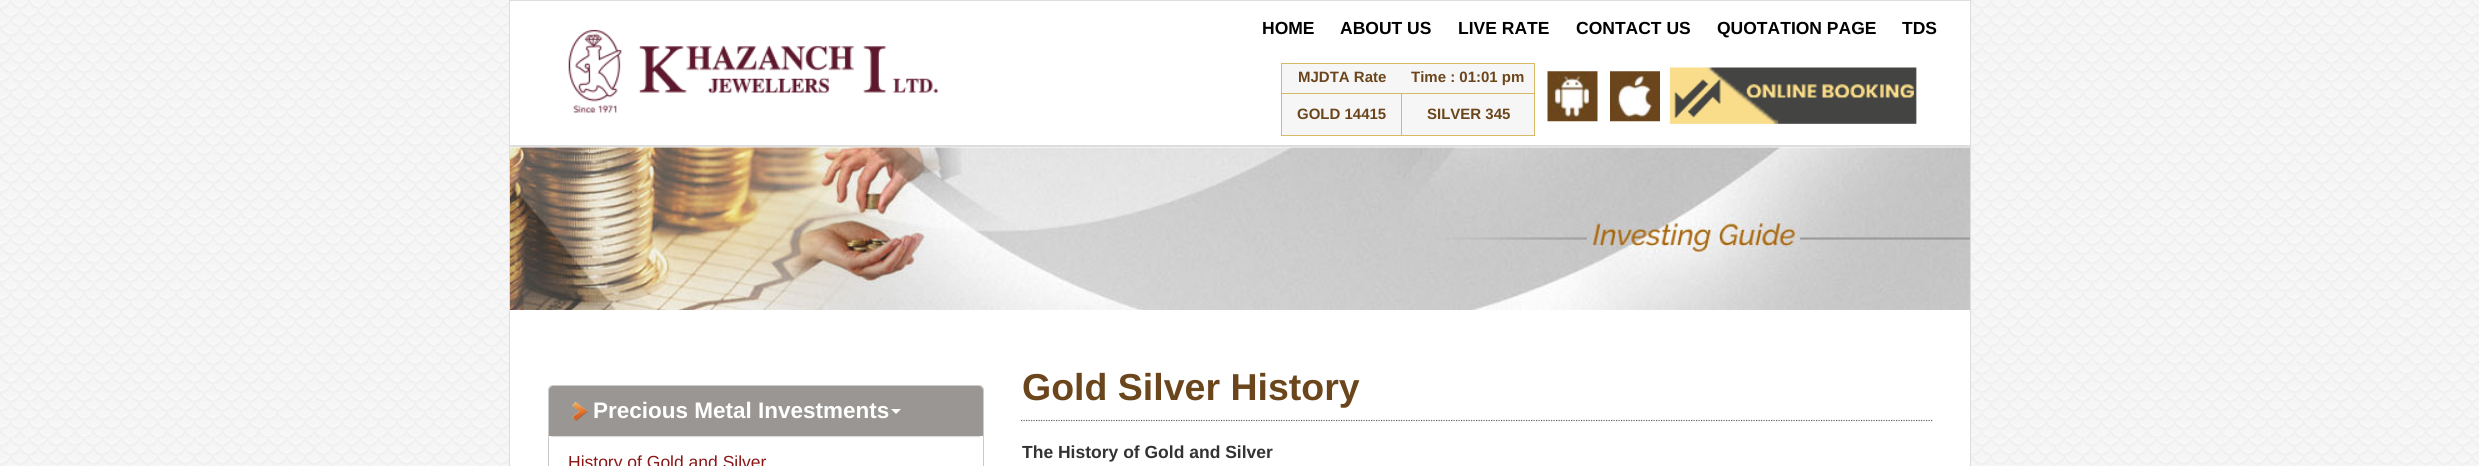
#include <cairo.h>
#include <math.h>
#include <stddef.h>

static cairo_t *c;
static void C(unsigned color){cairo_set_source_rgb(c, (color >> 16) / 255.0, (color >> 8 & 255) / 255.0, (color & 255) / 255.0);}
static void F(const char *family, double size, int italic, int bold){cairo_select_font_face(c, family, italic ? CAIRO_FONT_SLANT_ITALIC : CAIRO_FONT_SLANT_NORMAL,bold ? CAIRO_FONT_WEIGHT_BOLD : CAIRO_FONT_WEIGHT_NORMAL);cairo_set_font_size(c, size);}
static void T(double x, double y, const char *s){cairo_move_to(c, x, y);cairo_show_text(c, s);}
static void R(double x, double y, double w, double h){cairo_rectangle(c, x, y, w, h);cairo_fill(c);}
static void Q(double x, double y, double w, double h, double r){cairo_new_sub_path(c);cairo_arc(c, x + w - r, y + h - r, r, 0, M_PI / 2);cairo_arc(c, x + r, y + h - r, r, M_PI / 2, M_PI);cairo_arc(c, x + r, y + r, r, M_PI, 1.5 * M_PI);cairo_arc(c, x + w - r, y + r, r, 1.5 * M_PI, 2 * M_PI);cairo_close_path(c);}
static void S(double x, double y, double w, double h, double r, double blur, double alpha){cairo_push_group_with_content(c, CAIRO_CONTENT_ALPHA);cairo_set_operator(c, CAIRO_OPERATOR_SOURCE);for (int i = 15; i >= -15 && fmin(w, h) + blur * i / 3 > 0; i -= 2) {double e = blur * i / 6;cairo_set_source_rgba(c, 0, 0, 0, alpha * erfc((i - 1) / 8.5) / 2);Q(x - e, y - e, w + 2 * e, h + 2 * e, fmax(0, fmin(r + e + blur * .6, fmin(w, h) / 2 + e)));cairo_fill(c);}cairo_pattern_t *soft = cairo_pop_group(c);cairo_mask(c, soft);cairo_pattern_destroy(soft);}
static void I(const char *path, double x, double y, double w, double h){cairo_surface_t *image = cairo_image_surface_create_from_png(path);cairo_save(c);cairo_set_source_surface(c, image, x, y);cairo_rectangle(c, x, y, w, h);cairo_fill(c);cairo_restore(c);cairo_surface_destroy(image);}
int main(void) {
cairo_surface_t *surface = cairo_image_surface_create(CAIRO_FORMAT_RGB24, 2479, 466);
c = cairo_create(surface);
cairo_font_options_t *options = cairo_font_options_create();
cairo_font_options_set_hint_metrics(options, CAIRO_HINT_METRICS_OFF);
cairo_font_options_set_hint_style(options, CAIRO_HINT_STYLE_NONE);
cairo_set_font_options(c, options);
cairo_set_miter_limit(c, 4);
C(0xffffff);
cairo_paint(c);
I("1.png",0,0,2479,466);
C(0xffffff);
cairo_rectangle(c,509.5,.5,1461,145);
cairo_fill_preserve(c);
C(0xdddddd);
cairo_set_line_width(c,1);
cairo_stroke(c);
I("2.png",568,29,370,84);
F("Liberation Sans",17.5,0,1);
C(0x000000);
T(1262,34,"HOME");
T(1340,34,"ABOUT US");
T(1458,34,"LIVE RATE");
T(1576,34,"CONTACT US");
T(1717,34,"QUOTATION PAGE");
T(1902,34,"TDS");
C(0xf7f6f6);
R(1282,64,252,71);
C(0xd8b966);
R(1281,63,254,1);
R(1534,63,1,73);
R(1281,135,254,1);
R(1281,63,1,73);
F("Liberation Sans",15,0,1);
C(0x6b461c);
T(1298,82,"MJDTA Rate");
C(0xd8b966);
R(1401,93,1,43);
R(1281,93,254,1);
C(0x6b461c);
T(1411,82,"Time : 01:01 pm");
T(1297,119,"GOLD 14415");
T(1427,119,"SILVER 345");
I("3.png",1547,71,51,51);
I("4.png",1610,71,50,51);
I("5.png",1669,67,248,57);
C(0xffffff);
cairo_rectangle(c,509.5,146.5,1461,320);
cairo_fill_preserve(c);
C(0xdddddd);
cairo_stroke(c);
I("6.png",510,147,1460,163);
Q(548.5,385.5,435,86,4.5);
cairo_set_source_rgba(c,0,0,0,0.2);
cairo_stroke(c);
C(0x999693);
cairo_new_path(c);
cairo_move_to(c,553,386);
cairo_line_to(c,979,386);
cairo_curve_to(c,981,386,983,388,983,390);
cairo_line_to(c,983,436);
cairo_line_to(c,549,436);
cairo_line_to(c,549,390);
cairo_curve_to(c,549,388,551,386,553,386);
cairo_close_path(c);
cairo_fill(c);
I("7.png",572,401,16,20);
F("Liberation Sans",22.5,0,1);
C(0xffffff);
T(593,418,"Precious Metal Investments");
cairo_new_path(c);
cairo_move_to(c,891,409);
cairo_line_to(c,901,409);
cairo_line_to(c,896,414);
cairo_close_path(c);
cairo_fill(c);
C(0x000000);
S(549,438,434,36,5,1,.07);
C(0xdddddd);
R(551,436,429,1);
C(0xffffff);
R(549,438,434,28);
F("Liberation Sans",17.5,0,0);
C(0x8a1616);
T(568,468,"History of Gold and Silver");
F("Liberation Sans",37.5,0,1);
C(0x6b461c);
T(1022,400,"Gold Silver History");
cairo_new_path(c);
cairo_move_to(c,1021,420.5);
cairo_line_to(c,1932.5,420.5);
C(0x666666);
cairo_set_line_width(c,1.2);
cairo_set_dash(c,(double[]){1.25,1.25},2,0);
cairo_stroke(c);
F("Liberation Sans",17.5,0,1);
C(0x333333);
T(1022,458,"The History of Gold and Silver");
cairo_surface_write_to_png(surface, "o.png");
cairo_font_options_destroy(options);
cairo_destroy(c);
cairo_surface_destroy(surface);
return 0;
}
